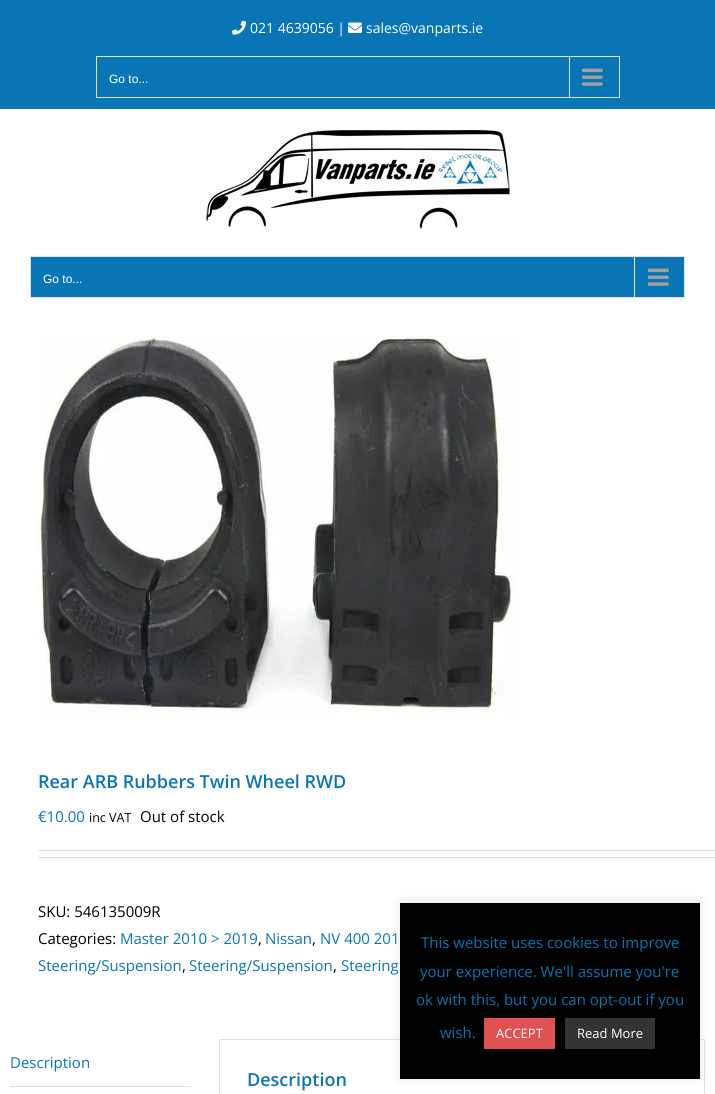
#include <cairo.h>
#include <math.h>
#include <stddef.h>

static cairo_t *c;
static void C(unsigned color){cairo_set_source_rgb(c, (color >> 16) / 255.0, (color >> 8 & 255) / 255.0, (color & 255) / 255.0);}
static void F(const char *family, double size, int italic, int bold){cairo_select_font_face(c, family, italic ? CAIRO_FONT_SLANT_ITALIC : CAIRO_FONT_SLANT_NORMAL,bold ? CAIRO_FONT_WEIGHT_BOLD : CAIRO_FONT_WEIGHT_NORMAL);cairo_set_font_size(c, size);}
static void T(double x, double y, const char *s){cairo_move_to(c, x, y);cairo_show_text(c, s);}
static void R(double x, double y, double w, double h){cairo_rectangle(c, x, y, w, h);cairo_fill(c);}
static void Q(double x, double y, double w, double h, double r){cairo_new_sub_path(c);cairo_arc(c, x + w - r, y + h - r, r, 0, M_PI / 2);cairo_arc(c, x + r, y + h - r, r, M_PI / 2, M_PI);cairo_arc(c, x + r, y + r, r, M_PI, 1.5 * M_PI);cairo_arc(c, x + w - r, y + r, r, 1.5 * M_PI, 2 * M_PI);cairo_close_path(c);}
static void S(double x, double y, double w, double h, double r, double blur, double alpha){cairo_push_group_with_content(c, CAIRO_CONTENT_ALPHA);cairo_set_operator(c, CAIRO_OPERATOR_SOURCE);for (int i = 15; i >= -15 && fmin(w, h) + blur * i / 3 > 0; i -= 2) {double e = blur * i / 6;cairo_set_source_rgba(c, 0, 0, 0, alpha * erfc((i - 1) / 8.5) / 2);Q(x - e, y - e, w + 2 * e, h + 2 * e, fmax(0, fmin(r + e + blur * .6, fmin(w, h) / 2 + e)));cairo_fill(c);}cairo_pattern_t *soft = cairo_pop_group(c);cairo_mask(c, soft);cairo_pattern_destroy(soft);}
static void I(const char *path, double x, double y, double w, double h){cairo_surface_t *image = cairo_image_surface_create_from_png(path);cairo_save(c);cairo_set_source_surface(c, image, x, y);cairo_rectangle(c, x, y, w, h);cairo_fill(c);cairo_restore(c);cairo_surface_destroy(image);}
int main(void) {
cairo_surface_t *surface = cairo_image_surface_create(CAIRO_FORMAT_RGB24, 715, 1094);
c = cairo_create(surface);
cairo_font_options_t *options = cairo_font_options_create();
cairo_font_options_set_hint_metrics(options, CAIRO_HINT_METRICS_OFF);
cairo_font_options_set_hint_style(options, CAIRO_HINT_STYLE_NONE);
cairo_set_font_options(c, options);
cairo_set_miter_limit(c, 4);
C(0xffffff);
cairo_paint(c);
C(0x0975b5);
R(0,0,715,109);
I("1.png",232,20,14,15);
F("Open Sans",14,0,0);
C(0xffffff);
T(250,33,"021 4639056 |");
I("2.png",348,22,14,11);
T(366,33,"sales@vanparts.ie");
cairo_rectangle(c,96.5,56.5,523,41);
C(0xe2e2e2);
cairo_set_line_width(c,1);
cairo_stroke(c);
F("Liberation Sans",12,0,0);
C(0xffffff);
T(109,83,"Go to...");
C(0xe2e2e2);
R(569,57,1,40);
I("3.png",582,68,21,18);
I("4.png",206,129,304,100);
C(0x0975b5);
cairo_rectangle(c,30.5,256.5,654,41);
cairo_fill_preserve(c);
C(0xe2e2e2);
cairo_stroke(c);
C(0xffffff);
T(43,283,"Go to...");
C(0xe2e2e2);
R(634,257,1,40);
I("3.png",648,268,21,18);
I("5.png",36,335,485,385);
F("Open Sans SemiBold",18,0,0);
C(0x0975b5);
T(38,788,"Rear ARB Rubbers Twin Wheel RWD");
F("Open Sans",15,0,0);
T(38,822,"€10.00");
F("Open Sans",12.5,0,0);
C(0x000000);
T(89,822,"inc VAT");
F("Open Sans",15,0,0);
T(140,822,"Out of stock");
C(0xe2e2e2);
R(38,850,677,1);
R(38,857,677,1);
C(0x000000);
T(38,917,"SKU: 546135009R");
T(38,944,"Categories:");
C(0x0975b5);
T(120,944,"Master 2010 > 2019");
C(0x000000);
T(258,944,",");
C(0x0975b5);
T(265,944,"Nissan");
C(0x000000);
T(312,944,",");
C(0x0975b5);
T(320,944,"NV 400 201");
T(38,971,"Steering/Suspension");
C(0x000000);
T(182,971,",");
C(0x0975b5);
T(189,971,"Steering/Suspension");
C(0x000000);
T(333,971,",");
C(0x0975b5);
T(341,971,"Steering");
C(0xe2e2e2);
R(10,1086,181,1);
C(0x0975b5);
T(10,1068,"Description");
cairo_rectangle(c,219.5,1039.5,485,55);
C(0xe2e2e2);
cairo_stroke(c);
F("Open Sans SemiBold",18,0,0);
C(0x0975b5);
T(247,1086,"Description");
C(0xacabab);
S(400,902,300,176,0,5,.3);
C(0x000000);
R(400,903,300,176);
F("Open Sans",15,0,0);
C(0x0975b5);
T(421,948,"This website uses cookies to improve");
T(420,977,"your experience. We'll assume you're");
T(416,1005,"ok with this, but you can opt-out if you");
T(440,1038,"wish.");
C(0xdf5251);
R(484,1018,71,31);
F("Open Sans",13,0,0);
C(0xffffff);
T(496,1038,"ACCEPT");
C(0x333333);
R(565,1018,90,31);
C(0xffffff);
T(577,1038,"Read More");
cairo_surface_write_to_png(surface, "o.png");
cairo_font_options_destroy(options);
cairo_destroy(c);
cairo_surface_destroy(surface);
return 0;
}
